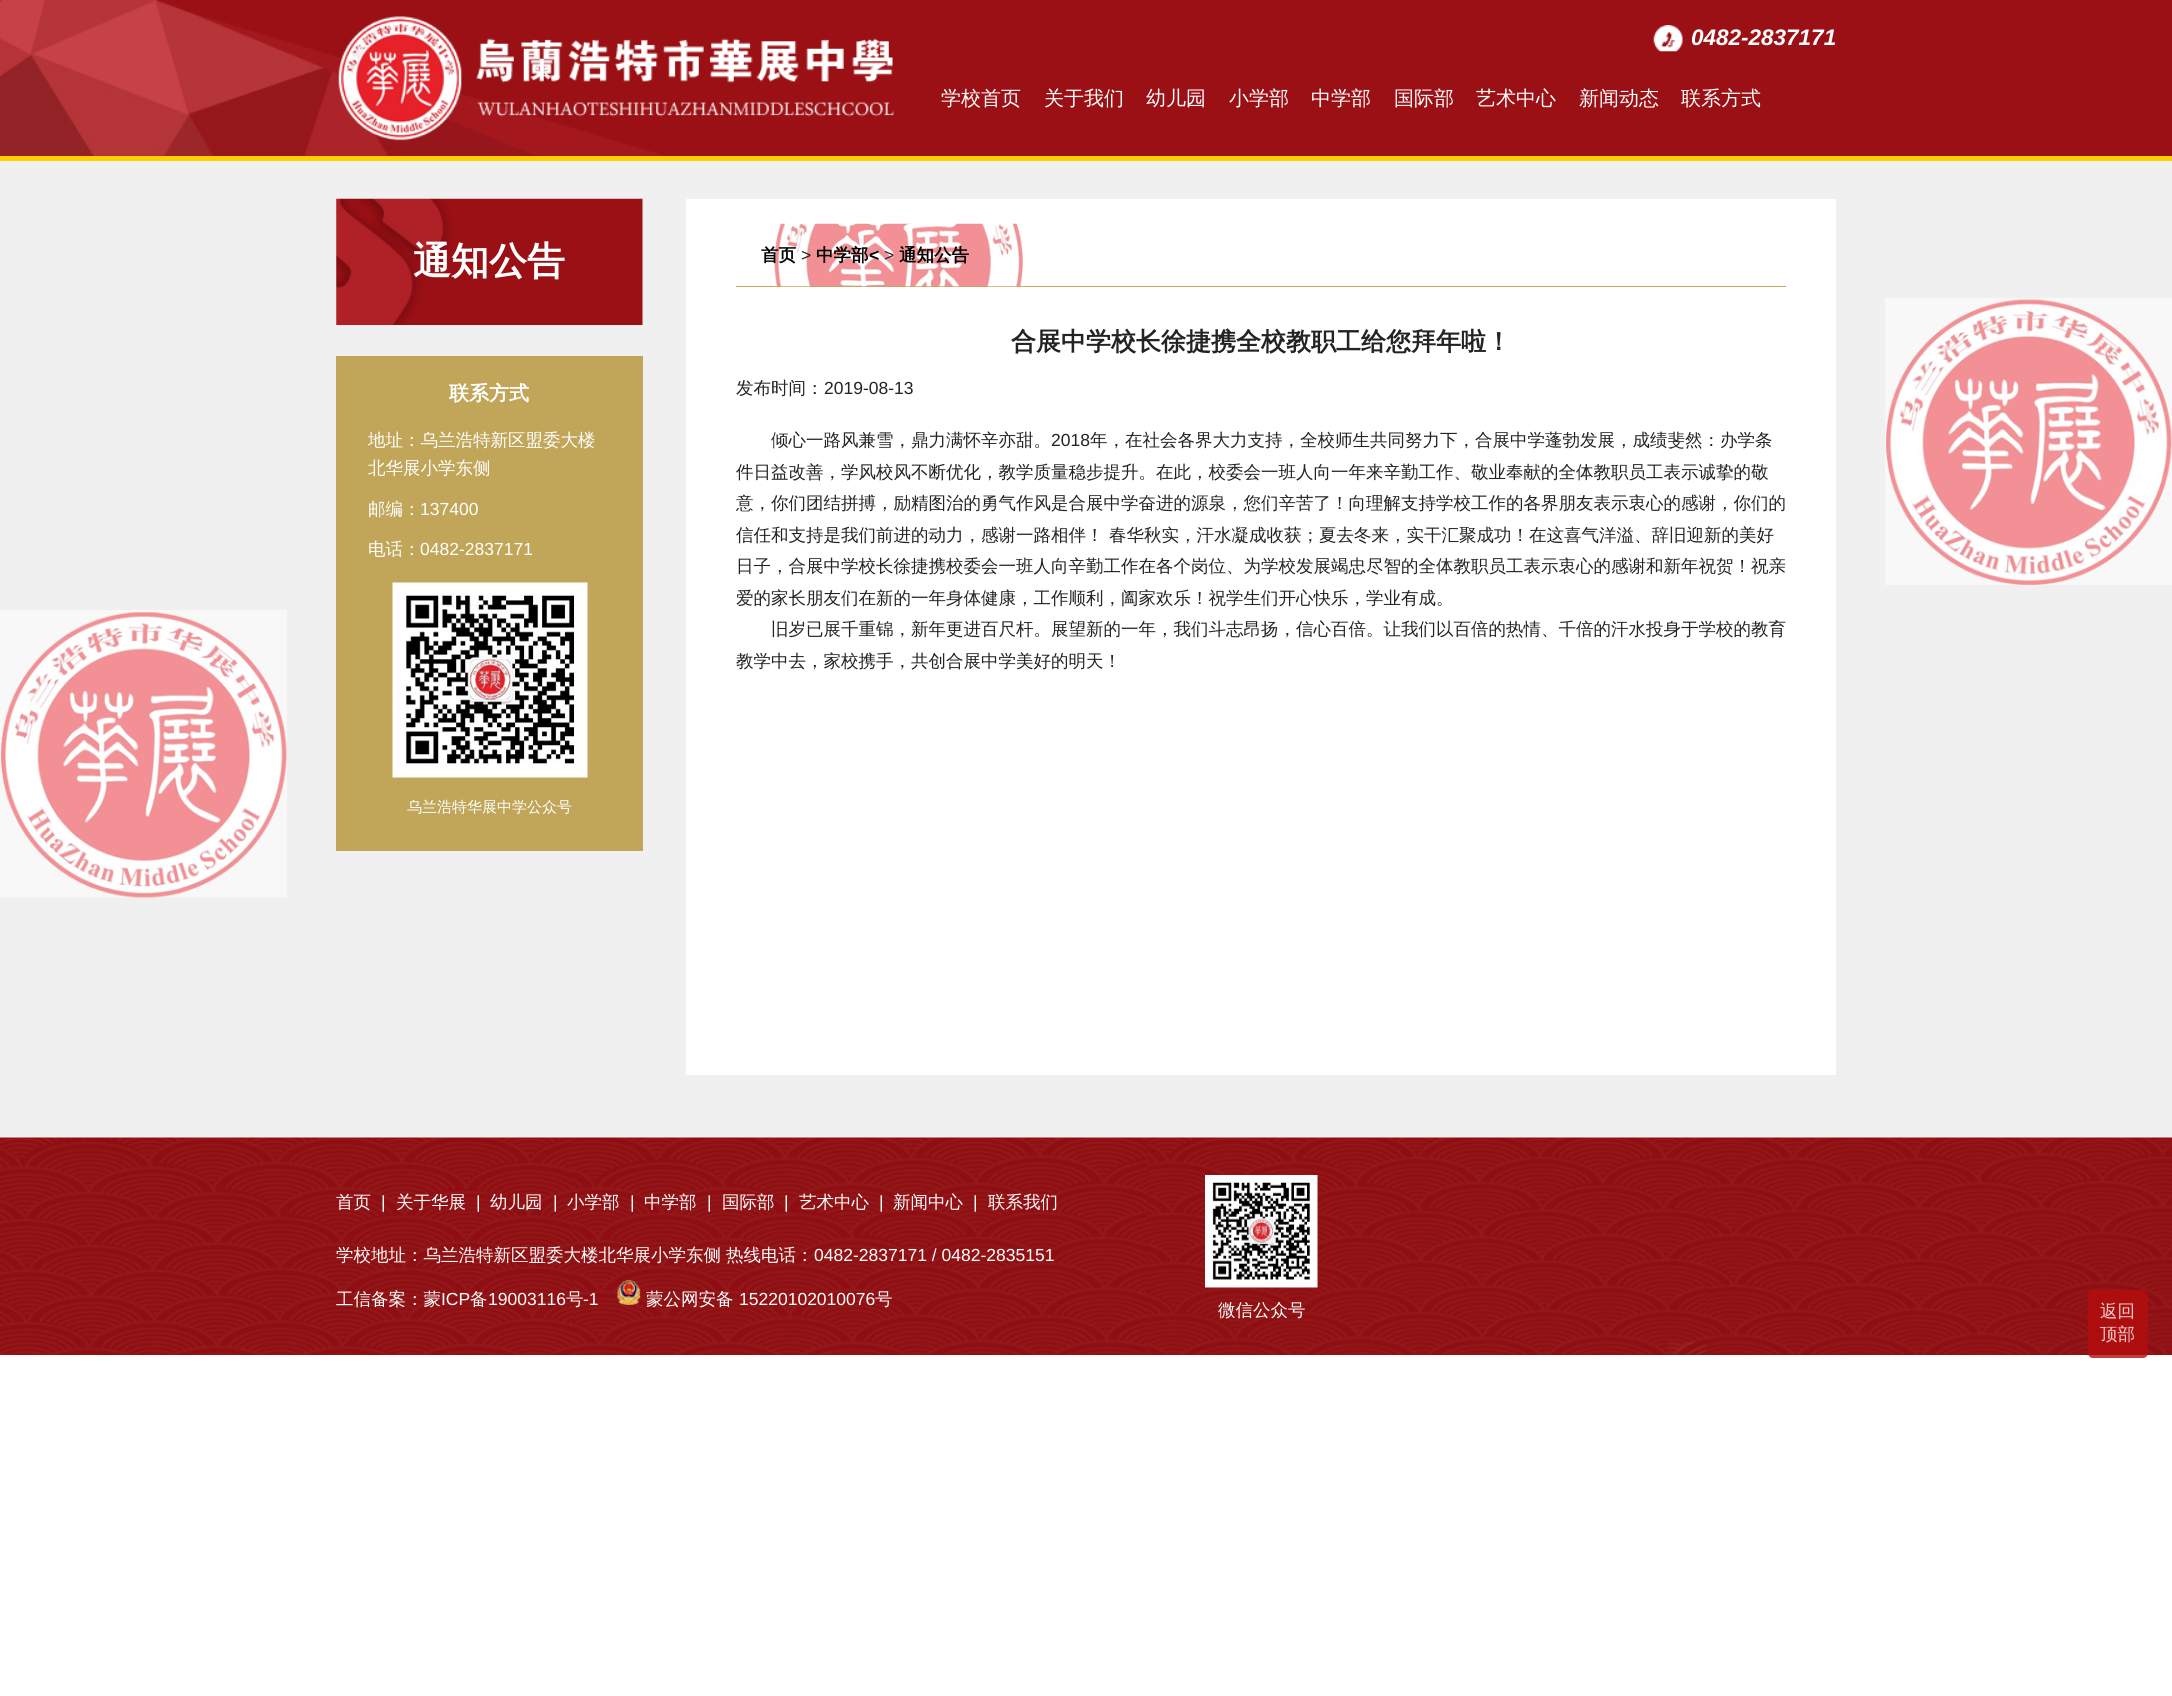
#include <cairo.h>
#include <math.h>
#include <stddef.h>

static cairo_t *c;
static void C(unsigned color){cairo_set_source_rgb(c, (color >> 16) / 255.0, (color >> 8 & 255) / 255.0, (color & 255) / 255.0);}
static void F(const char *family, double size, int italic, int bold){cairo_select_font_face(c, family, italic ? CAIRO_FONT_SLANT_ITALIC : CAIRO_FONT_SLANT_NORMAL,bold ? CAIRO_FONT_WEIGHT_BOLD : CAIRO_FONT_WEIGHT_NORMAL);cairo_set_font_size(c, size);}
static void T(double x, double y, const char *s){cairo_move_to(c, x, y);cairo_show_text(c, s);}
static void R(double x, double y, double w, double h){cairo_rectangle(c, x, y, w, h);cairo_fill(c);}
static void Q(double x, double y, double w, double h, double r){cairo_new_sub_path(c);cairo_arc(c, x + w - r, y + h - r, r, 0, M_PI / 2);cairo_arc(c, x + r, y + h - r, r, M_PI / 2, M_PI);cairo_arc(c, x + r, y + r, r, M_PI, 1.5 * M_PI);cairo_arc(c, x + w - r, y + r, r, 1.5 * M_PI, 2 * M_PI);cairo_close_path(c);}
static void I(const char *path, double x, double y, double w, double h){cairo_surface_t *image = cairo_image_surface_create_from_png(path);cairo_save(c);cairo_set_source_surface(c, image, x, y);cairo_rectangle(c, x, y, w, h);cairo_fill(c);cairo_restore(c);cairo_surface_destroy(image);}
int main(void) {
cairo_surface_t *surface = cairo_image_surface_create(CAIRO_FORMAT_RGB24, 2172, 1696);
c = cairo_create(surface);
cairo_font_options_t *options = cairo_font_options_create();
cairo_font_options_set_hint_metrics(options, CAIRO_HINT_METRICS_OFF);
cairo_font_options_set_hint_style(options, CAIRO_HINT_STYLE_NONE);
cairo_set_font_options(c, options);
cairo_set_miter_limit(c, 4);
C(0xffffff);
cairo_paint(c);
I("1.png",0,0,2172,156);
C(0xfdd000);
R(0,156,2172,5);
I("2.png",338,16,556,125);
I("3.png",1653,25,30,27);
F("Liberation Sans",22.5,1,1);
C(0xffffff);
T(1691,45,"0482-2837171");
F("WenQuanYi Zen Hei Medium",20,0,0);
T(941,105,"学校首页");
T(1044,105,"关于我们");
T(1146,105,"幼儿园");
T(1229,105,"小学部");
T(1311,105,"中学部");
T(1394,105,"国际部");
T(1476,105,"艺术中心");
T(1579,105,"新闻动态");
T(1681,105,"联系方式");
C(0xf0f0f0);
R(0,161,2172,977);
I("4.png",336,198,307,127);
F("WenQuanYi Zen Hei",38,0,1);
C(0xffffff);
T(413,274,"通知公告");
C(0xc1a65a);
R(336,356,307,495);
F("WenQuanYi Zen Hei",20,0,1);
C(0xffffff);
T(449,400,"联系方式");
F("WenQuanYi Zen Hei Medium",17.5,0,0);
T(368,446,"地址：乌兰浩特新区盟委大楼");
T(368,474,"北华展小学东侧");
T(368,515,"邮编：");
F("Liberation Sans",17.5,0,0);
T(420,515,"137400");
F("WenQuanYi Zen Hei Medium",17.5,0,0);
T(368,555,"电话：");
F("Liberation Sans",17.5,0,0);
T(420,555,"0482-2837171");
I("5.png",392,582,196,196);
F("WenQuanYi Zen Hei Medium",15,0,0);
T(407,812,"乌兰浩特华展中学公众号");
R(686,199,1150,876);
C(0xc1a65a);
R(736,286,1050,1);
I("6.png",774,223,250,64);
F("WenQuanYi Zen Hei",17.5,0,1);
C(0x000000);
T(761,261,"首页");
F("Liberation Sans",17.5,0,0);
C(0x232323);
T(801,261,">");
F("WenQuanYi Zen Hei",17.5,0,1);
C(0x000000);
T(816,261,"中学部");
F("Liberation Sans",17.5,0,1);
T(869,261,"<");
F("Liberation Sans",17.5,0,0);
C(0x232323);
T(884,261,">");
F("WenQuanYi Zen Hei",17.5,0,1);
C(0x000000);
T(899,261,"通知公告");
F("WenQuanYi Zen Hei",25,0,1);
C(0x232323);
T(1011,350,"合展中学校长徐捷携全校教职工给您拜年啦！");
F("WenQuanYi Zen Hei Medium",17.5,0,0);
T(736,394,"发布时间：");
F("Liberation Sans",17.5,0,0);
T(824,394,"2019-08-13");
F("WenQuanYi Zen Hei Medium",17.5,0,0);
T(771,446,"倾心一路风兼雪，鼎力满怀辛亦甜。");
F("Liberation Sans",17.5,0,0);
T(1051,446,"2018");
F("WenQuanYi Zen Hei Medium",17.5,0,0);
T(1090,446,"年，在社会各界大力支持，全校师生共同努力下，合展中学蓬勃发展，成绩斐然：办学条");
T(736,478,"件日益改善，学风校风不断优化，教学质量稳步提升。在此，校委会一班人向一年来辛勤工作、敬业奉献的全体教职员工表示诚挚的敬");
T(736,509,"意，你们团结拼搏，励精图治的勇气作风是合展中学奋进的源泉，您们辛苦了！向理解支持学校工作的各界朋友表示衷心的感谢，你们的");
T(736,541,"信任和支持是我们前进的动力，感谢一路相伴！");
T(1109,541,"春华秋实，汗水凝成收获；夏去冬来，实干汇聚成功！在这喜气洋溢、辞旧迎新的美好");
T(736,572,"日子，合展中学校长徐捷携校委会一班人向辛勤工作在各个岗位、为学校发展竭忠尽智的全体教职员工表示衷心的感谢和新年祝贺！祝亲");
T(736,604,"爱的家长朋友们在新的一年身体健康，工作顺利，阖家欢乐！祝学生们开心快乐，学业有成。");
T(771,635,"旧岁已展千重锦，新年更进百尺杆。展望新的一年，我们斗志昂扬，信心百倍。让我们以百倍的热情、千倍的汗水投身于学校的教育");
T(736,667,"教学中去，家校携手，共创合展中学美好的明天！");
I("7.png",1885,298,287,287);
I("8.png",0,610,287,288);
I("9.png",0,1137,2172,218);
C(0xffffff);
T(336,1208,"首页");
F("Liberation Sans",17.5,0,0);
T(381,1208,"|");
F("WenQuanYi Zen Hei Medium",17.5,0,0);
T(396,1208,"关于华展");
F("Liberation Sans",17.5,0,0);
T(476,1208,"|");
F("WenQuanYi Zen Hei Medium",17.5,0,0);
T(490,1208,"幼儿园");
F("Liberation Sans",17.5,0,0);
T(553,1208,"|");
F("WenQuanYi Zen Hei Medium",17.5,0,0);
T(567,1208,"小学部");
F("Liberation Sans",17.5,0,0);
T(630,1208,"|");
F("WenQuanYi Zen Hei Medium",17.5,0,0);
T(644,1208,"中学部");
F("Liberation Sans",17.5,0,0);
T(707,1208,"|");
F("WenQuanYi Zen Hei Medium",17.5,0,0);
T(722,1208,"国际部");
F("Liberation Sans",17.5,0,0);
T(784,1208,"|");
F("WenQuanYi Zen Hei Medium",17.5,0,0);
T(799,1208,"艺术中心");
F("Liberation Sans",17.5,0,0);
T(879,1208,"|");
F("WenQuanYi Zen Hei Medium",17.5,0,0);
T(893,1208,"新闻中心");
F("Liberation Sans",17.5,0,0);
T(973,1208,"|");
F("WenQuanYi Zen Hei Medium",17.5,0,0);
T(988,1208,"联系我们");
T(336,1261,"学校地址：乌兰浩特新区盟委大楼北华展小学东侧");
T(726,1261,"热线电话：");
F("Liberation Sans",17.5,0,0);
T(814,1261,"0482-2837171 / 0482-2835151");
F("WenQuanYi Zen Hei Medium",17.5,0,0);
T(336,1305,"工信备案：蒙");
F("Liberation Sans",17.5,0,0);
T(441,1305,"ICP");
F("WenQuanYi Zen Hei Medium",17.5,0,0);
T(470,1305,"备");
F("Liberation Sans",17.5,0,0);
T(488,1305,"19003116");
F("WenQuanYi Zen Hei Medium",17.5,0,0);
T(566,1305,"号");
F("Liberation Sans",17.5,0,0);
T(583,1305,"-1");
I("10.png",617,1280,24,25);
F("WenQuanYi Zen Hei Medium",17.5,0,0);
T(646,1305,"蒙公网安备");
F("Liberation Sans",17.5,0,0);
T(739,1305,"15220102010076");
F("WenQuanYi Zen Hei Medium",17.5,0,0);
T(875,1305,"号");
I("11.png",1205,1175,113,113);
T(1218,1316,"微信公众号");
cairo_set_source_rgba(c,0.71,0.051,0.051,0.8);
Q(2088,1290,60,68,5);
cairo_fill(c);
C(0xefcfcf);
T(2100,1317,"返回");
T(2100,1340,"顶部");
cairo_surface_write_to_png(surface, "o.png");
cairo_font_options_destroy(options);
cairo_destroy(c);
cairo_surface_destroy(surface);
return 0;
}
